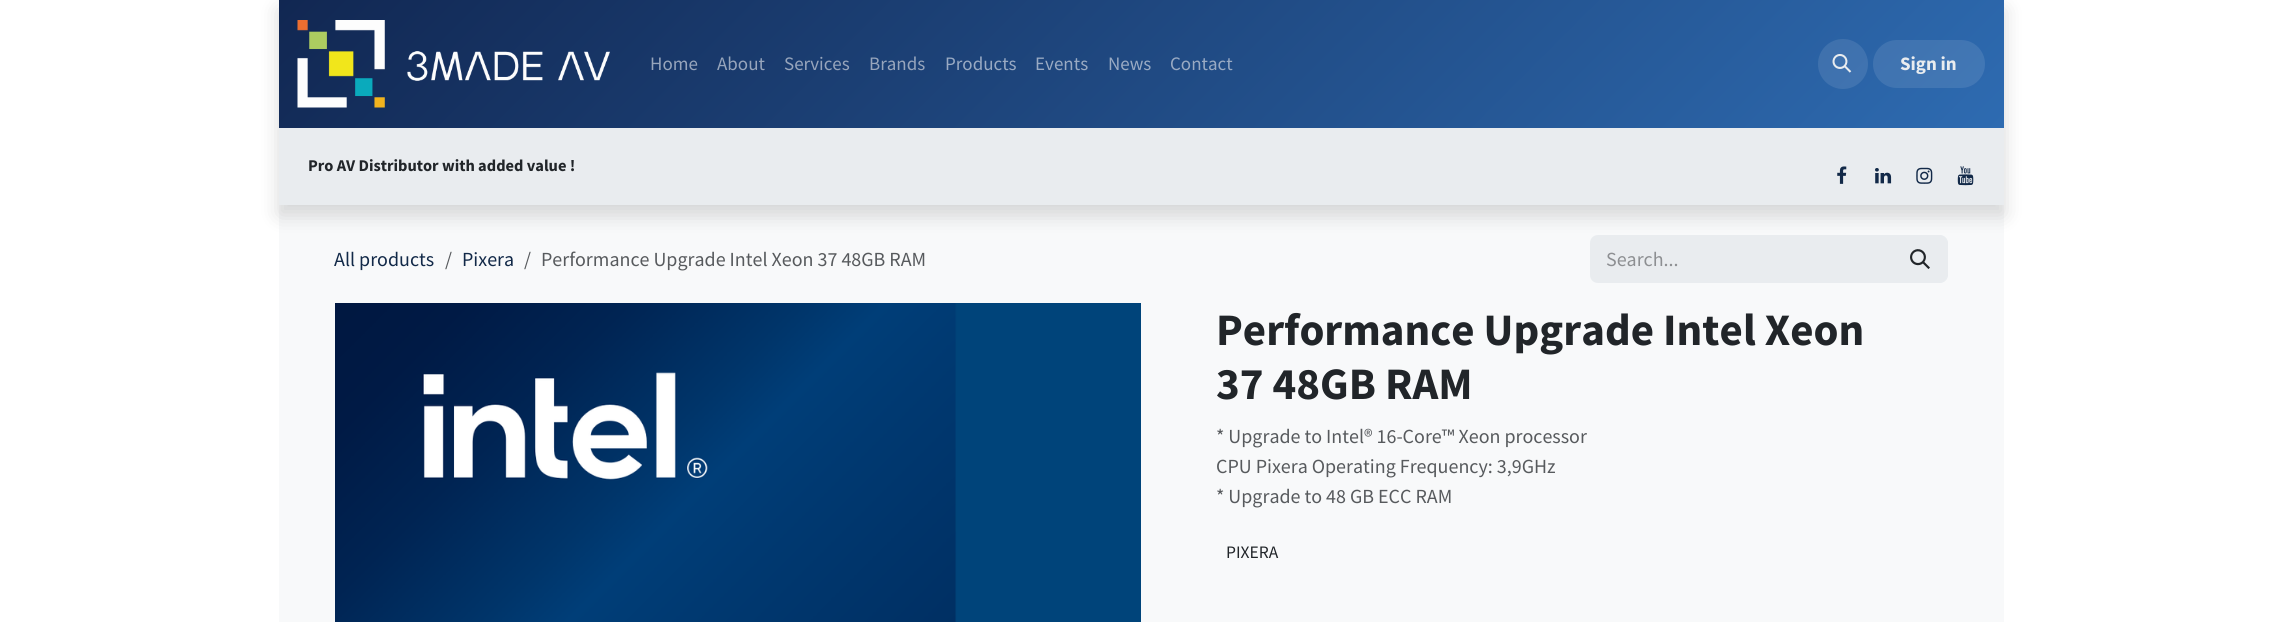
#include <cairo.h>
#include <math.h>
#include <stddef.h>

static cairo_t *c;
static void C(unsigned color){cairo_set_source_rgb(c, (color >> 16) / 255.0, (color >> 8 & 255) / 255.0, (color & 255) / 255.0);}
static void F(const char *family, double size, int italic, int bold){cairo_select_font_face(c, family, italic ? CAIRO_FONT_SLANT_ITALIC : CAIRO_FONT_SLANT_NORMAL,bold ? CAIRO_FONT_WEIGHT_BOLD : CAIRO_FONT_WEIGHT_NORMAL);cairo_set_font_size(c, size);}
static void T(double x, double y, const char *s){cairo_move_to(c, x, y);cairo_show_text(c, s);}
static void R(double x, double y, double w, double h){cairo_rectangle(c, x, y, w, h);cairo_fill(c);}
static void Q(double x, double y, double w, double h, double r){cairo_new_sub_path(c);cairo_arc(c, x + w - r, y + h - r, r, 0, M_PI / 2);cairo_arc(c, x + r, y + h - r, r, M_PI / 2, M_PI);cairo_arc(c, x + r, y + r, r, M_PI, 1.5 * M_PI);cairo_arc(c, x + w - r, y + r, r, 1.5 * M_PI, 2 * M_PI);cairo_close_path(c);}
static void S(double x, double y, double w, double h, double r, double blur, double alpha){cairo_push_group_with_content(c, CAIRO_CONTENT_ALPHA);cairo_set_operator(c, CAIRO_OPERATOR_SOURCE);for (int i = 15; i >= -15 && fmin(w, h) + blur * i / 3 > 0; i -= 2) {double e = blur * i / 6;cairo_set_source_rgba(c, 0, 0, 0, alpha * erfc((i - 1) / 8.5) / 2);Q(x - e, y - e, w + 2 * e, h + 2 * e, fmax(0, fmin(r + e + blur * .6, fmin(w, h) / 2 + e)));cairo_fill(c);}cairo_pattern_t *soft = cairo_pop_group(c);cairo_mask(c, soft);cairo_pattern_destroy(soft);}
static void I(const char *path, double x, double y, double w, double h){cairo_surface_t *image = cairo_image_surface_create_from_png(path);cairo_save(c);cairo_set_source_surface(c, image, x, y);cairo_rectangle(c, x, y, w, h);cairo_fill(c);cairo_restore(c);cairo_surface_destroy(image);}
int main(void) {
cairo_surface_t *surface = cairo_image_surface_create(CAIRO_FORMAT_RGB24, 2281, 622);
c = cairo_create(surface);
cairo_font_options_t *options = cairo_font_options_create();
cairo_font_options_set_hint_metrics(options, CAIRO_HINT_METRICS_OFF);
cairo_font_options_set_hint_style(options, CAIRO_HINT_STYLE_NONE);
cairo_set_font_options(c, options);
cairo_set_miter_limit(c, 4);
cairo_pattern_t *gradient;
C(0xffffff);
cairo_paint(c);
C(0xf8f9fa);
R(279,205,1725,417);
C(0xe9ecef);
cairo_new_path(c);
cairo_move_to(c,1598,235);
cairo_line_to(c,1895,235);
cairo_line_to(c,1895,283);
cairo_line_to(c,1598,283);
cairo_curve_to(c,1593.5,283,1590,279.5,1590,275);
cairo_line_to(c,1590,243);
cairo_curve_to(c,1590,238.5,1593.5,235,1598,235);
cairo_close_path(c);
cairo_fill(c);
cairo_new_path(c);
cairo_move_to(c,1894.5,235.5);
cairo_line_to(c,1940,235.5);
cairo_curve_to(c,1944,235.5,1947.5,239,1947.5,243);
cairo_line_to(c,1947.5,275);
cairo_curve_to(c,1947.5,279,1944,282.5,1940,282.5);
cairo_line_to(c,1894.5,282.5);
cairo_close_path(c);
cairo_fill_preserve(c);
cairo_set_line_width(c,1);
cairo_stroke(c);
C(0x000000);
S(279,10,1725,205,0,10,.15);
gradient = cairo_pattern_create_linear(659,-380,1624,585);
cairo_pattern_add_color_stop_rgba(gradient,0,0.067,0.153,0.322,1);
cairo_pattern_add_color_stop_rgba(gradient,1,0.184,0.431,0.71,1);
cairo_set_source(c,gradient);
cairo_pattern_destroy(gradient);
R(279,0,1725,128);
I("1.png",297,20,313,88);
F("Source Sans Pro",19,0,0);
C(0x97a5bc);
T(650,70,"Home");
T(717,70,"About");
T(784,70,"Services");
T(869,70,"Brands");
C(0x99aac3);
T(945,70,"Products");
T(1035,70,"Events");
T(1108,70,"News");
T(1170,70,"Contact");
cairo_set_source_rgba(c,1,1,1,0.1);
cairo_new_path(c);
cairo_arc(c,1843,64,25,0,2 * M_PI);
cairo_fill(c);
I("2.png",1832,54,20,19);
Q(1873,40,112,48,24);
cairo_fill(c);
F("Source Sans Pro",19,0,1);
C(0xe9ecef);
T(1900,70,"Sign in");
R(279,128,1725,77);
F("Source Sans Pro",16.4,0,1);
C(0x212529);
T(308,171,"Pro AV Distributor with added value !");
I("3.png",1837,166,10,18);
I("4.png",1875,168,17,16);
I("5.png",1916,167,17,17);
I("6.png",1957,166,17,20);
F("Source Sans Pro",20,0,0);
C(0x122948);
T(334,266,"All products");
C(0x575a5d);
T(445,266,"/");
C(0x122948);
T(462,266,"Pixera");
C(0x575a5d);
T(524,266,"/");
T(541,266,"Performance Upgrade Intel Xeon 37 48GB RAM");
C(0x8d8f92);
T(1606,266,"Search...");
I("7.png",1910,249,20,20);
I("8.png",335,303,806,319);
F("Source Sans Pro",45,0,1);
C(0x212529);
T(1216,345,"Performance Upgrade Intel Xeon");
T(1216,399,"37 48GB RAM");
F("Source Sans Pro",20,0,0);
C(0x575a5d);
T(1216,443,"* Upgrade to Intel® 16-Core™ Xeon processor");
T(1216,473,"CPU Pixera Operating Frequency: 3,9GHz");
T(1216,503,"* Upgrade to 48 GB ECC RAM");
F("Source Sans Pro",17.5,0,0);
C(0x212529);
T(1226,558,"PIXERA");
cairo_surface_write_to_png(surface, "o.png");
cairo_font_options_destroy(options);
cairo_destroy(c);
cairo_surface_destroy(surface);
return 0;
}
